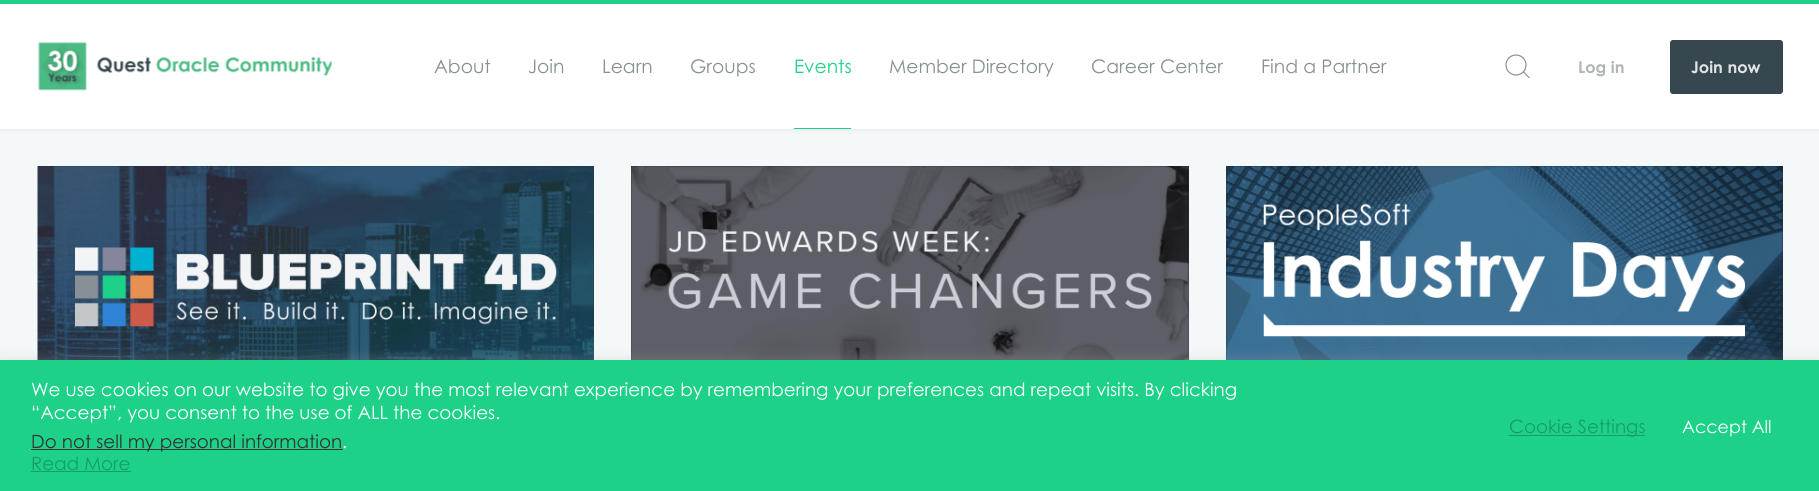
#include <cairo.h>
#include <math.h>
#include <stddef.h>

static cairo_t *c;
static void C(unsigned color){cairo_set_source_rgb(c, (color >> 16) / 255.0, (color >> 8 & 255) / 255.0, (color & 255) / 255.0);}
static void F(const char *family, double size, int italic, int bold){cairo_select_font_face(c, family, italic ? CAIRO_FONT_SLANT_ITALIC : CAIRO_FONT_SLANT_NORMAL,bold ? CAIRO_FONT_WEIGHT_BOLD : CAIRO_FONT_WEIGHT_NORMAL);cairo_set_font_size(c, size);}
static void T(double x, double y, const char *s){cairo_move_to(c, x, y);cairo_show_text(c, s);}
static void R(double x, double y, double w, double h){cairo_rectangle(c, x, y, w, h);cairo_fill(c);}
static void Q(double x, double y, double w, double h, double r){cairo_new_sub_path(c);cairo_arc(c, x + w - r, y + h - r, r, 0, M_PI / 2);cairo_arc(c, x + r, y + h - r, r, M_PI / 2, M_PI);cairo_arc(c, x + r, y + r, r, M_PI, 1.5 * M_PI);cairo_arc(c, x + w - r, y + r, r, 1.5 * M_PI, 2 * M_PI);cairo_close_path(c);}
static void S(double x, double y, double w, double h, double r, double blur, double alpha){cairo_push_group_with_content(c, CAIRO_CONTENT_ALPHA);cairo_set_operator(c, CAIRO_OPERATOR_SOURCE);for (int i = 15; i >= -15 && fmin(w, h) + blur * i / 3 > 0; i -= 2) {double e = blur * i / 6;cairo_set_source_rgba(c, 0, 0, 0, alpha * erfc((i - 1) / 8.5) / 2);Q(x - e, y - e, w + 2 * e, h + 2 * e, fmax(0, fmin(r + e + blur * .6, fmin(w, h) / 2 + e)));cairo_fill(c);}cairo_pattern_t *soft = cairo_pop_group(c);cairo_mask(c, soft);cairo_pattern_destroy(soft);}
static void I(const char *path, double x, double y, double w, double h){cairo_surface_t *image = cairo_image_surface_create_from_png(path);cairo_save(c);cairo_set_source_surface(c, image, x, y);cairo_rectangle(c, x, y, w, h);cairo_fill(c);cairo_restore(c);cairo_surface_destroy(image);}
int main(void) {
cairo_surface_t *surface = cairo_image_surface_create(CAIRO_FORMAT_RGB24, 1819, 491);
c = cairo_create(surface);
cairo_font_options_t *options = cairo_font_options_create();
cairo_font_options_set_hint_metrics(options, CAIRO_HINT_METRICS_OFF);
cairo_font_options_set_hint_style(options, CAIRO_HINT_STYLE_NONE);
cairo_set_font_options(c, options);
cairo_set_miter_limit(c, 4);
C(0xf5f8f9);
cairo_paint(c);
C(0x37474f);
S(0,1,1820,129,0,2,.09);
C(0xffffff);
R(0,4,1819,125);
C(0x1dd189);
R(0,0,1819,4);
I("1.png",38,42,294,49);
F("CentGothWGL",18.75,0,0);
C(0x879195);
T(434,73,"About");
T(528,73,"Join");
T(602,73,"Learn");
T(690,73,"Groups");
C(0x1dd189);
T(794,73,"Events");
R(794,128,57,1);
C(0x879195);
T(889,73,"Member Directory");
T(1091,73,"Career Center");
T(1261,73,"Find a Partner");
cairo_new_path(c);
cairo_arc(c,1516,65,10,0,2 * M_PI);
cairo_set_line_width(c,1.2);
cairo_stroke(c);
cairo_new_path(c);
cairo_move_to(c,1529,77.5);
cairo_line_to(c,1523.5,72);
cairo_set_line_cap(c,CAIRO_LINE_CAP_ROUND);
cairo_set_line_join(c,CAIRO_LINE_JOIN_ROUND);
cairo_stroke(c);
F("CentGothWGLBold",16.25,0,0);
C(0xafb5b9);
T(1578,73,"Log in");
C(0x37474f);
Q(1670.5,40.5,112,53,2.5);
cairo_fill_preserve(c);
cairo_set_line_width(c,1);
cairo_set_line_cap(c,CAIRO_LINE_CAP_BUTT);
cairo_set_line_join(c,CAIRO_LINE_JOIN_MITER);
cairo_stroke(c);
C(0xe1e4e5);
T(1691,73,"Join now");
C(0x212c42);
R(38,166,556,194);
I("2.png",37,166,557,194);
I("3.png",75,247,482,80);
R(631,166,558,194);
I("4.png",631,166,558,194);
I("5.png",668,231,484,78);
R(1226,166,557,194);
I("6.png",1226,166,557,194);
I("7.png",1263,203,482,134);
C(0xacabab);
S(0,359,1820,131,0,6,.3);
C(0x1dd189);
R(0,360,1819,131);
F("CentGothWGL",18.33,0,0);
C(0xffffff);
T(31,396,"We use cookies on our website to give you the most relevant experience by remembering your preferences and repeat visits. By clicking");
T(31,419,"“Accept”, you consent to the use of ALL the cookies.");
C(0x333333);
R(31,449,312,1);
T(31,448,"Do not sell my personal information");
C(0xffffff);
T(342,448,".");
C(0x169e68);
T(31,470,"Read More");
R(31,471,100,1);
R(1509,435,136,1);
T(1509,433,"Cookie Settings");
F("CentGothWGL",17.5,0,0);
C(0xffffff);
T(1682,433,"Accept All");
cairo_surface_write_to_png(surface, "o.png");
cairo_font_options_destroy(options);
cairo_destroy(c);
cairo_surface_destroy(surface);
return 0;
}
